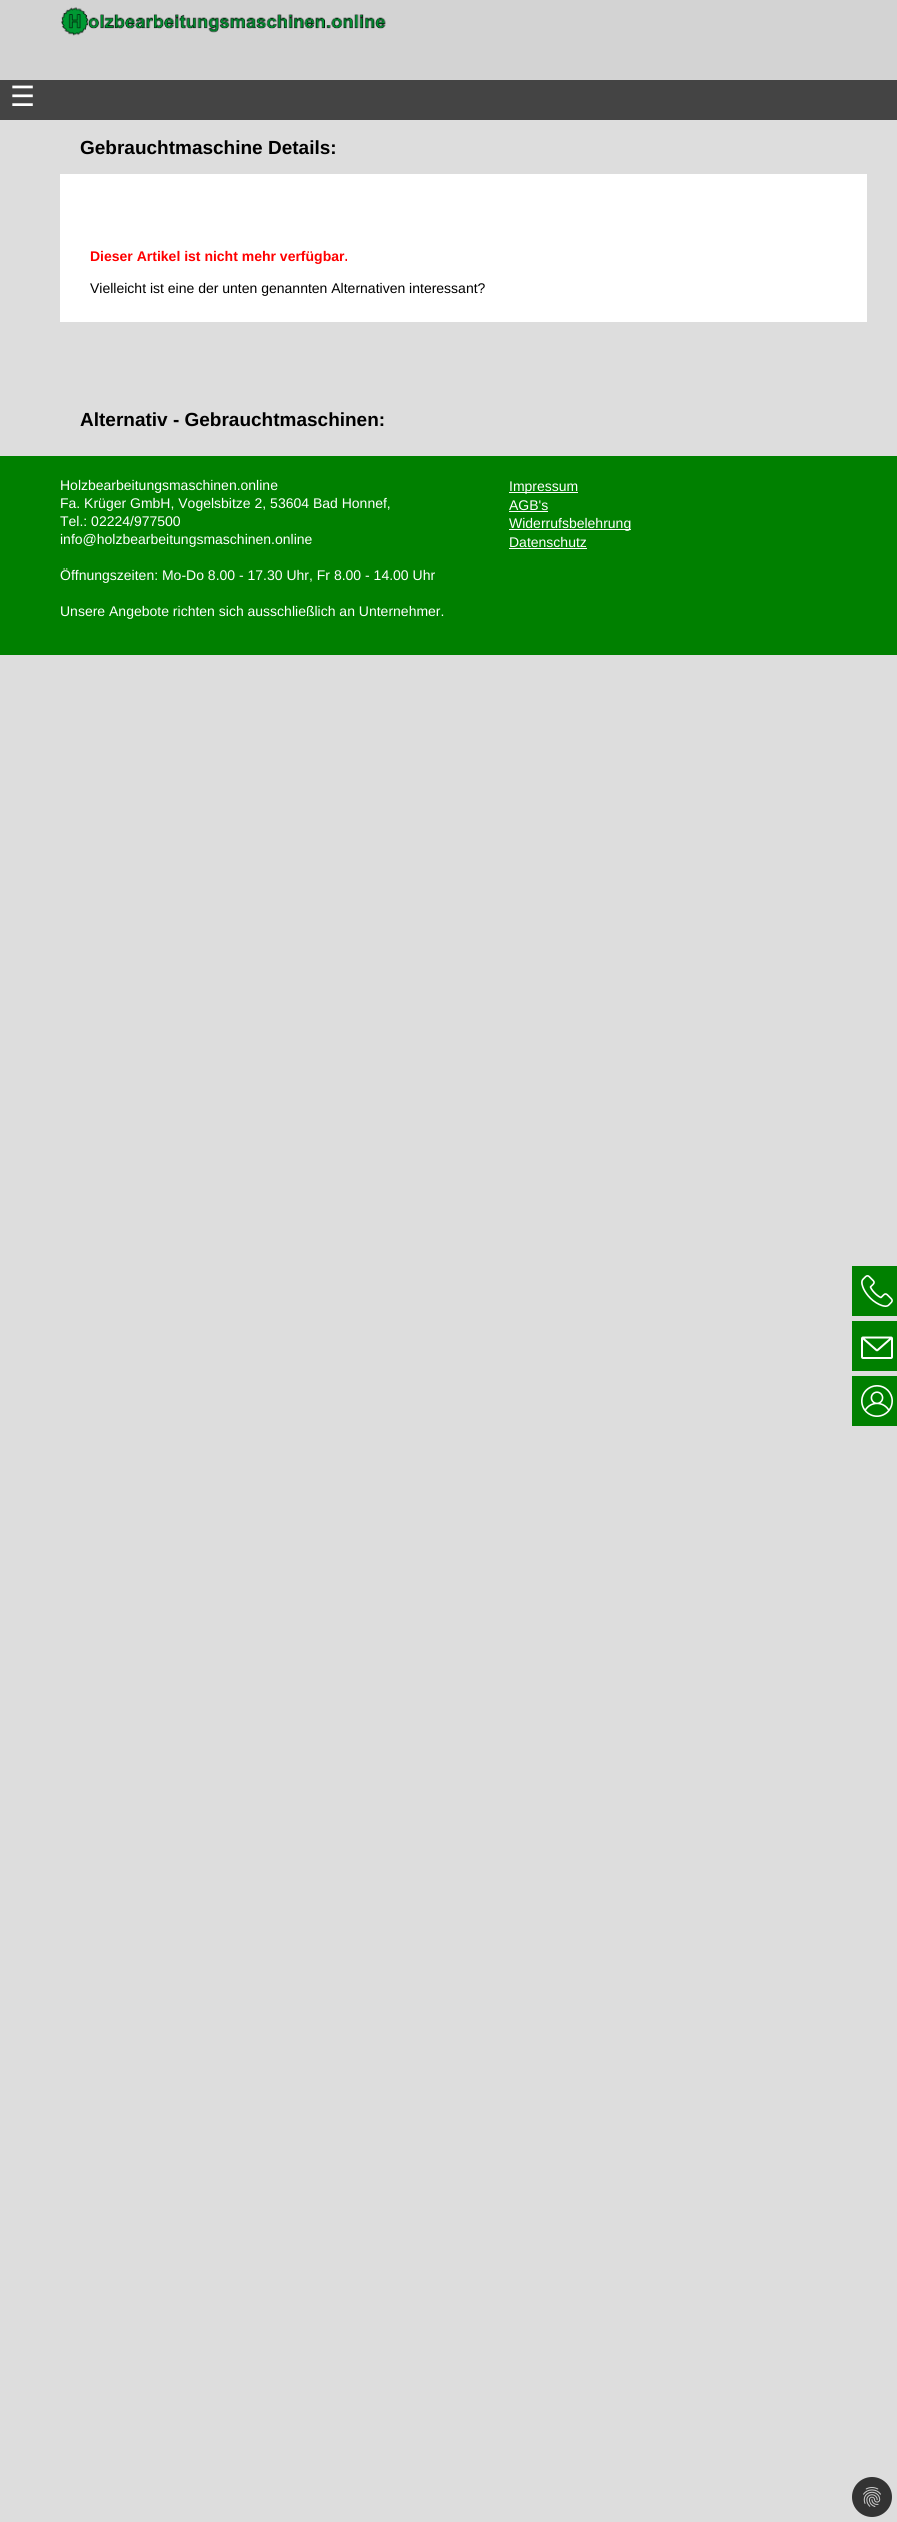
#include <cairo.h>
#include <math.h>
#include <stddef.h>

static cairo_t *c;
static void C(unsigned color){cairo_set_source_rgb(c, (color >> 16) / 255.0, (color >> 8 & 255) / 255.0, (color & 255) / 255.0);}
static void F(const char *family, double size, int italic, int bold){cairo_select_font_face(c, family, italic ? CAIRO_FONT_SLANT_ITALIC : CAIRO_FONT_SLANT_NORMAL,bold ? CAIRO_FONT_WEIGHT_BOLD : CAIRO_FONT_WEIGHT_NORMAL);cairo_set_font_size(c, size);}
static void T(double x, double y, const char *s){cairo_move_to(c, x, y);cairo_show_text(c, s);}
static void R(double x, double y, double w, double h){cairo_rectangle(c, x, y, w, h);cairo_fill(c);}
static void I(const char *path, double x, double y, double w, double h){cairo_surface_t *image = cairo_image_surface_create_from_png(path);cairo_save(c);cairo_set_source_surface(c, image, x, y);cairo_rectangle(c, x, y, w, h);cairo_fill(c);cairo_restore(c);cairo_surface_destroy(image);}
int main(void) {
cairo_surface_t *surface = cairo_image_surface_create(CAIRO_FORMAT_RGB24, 897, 2522);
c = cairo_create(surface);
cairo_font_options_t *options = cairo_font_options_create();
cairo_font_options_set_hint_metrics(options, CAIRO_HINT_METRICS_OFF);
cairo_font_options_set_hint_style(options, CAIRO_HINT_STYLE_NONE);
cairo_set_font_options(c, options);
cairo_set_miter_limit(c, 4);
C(0xdddddd);
cairo_paint(c);
C(0xd3d3d3);
R(0,0,897,80);
I("1.png",61,7,325,29);
C(0x444444);
R(0,80,897,40);
F("DejaVu Sans",28,0,0);
C(0xffffff);
T(10,106,"☰");
F("Liberation Sans",19,0,1);
C(0x000000);
T(80,154,"Gebrauchtmaschine Details:");
C(0xffffff);
R(60,174,807,148);
F("Liberation Sans",14,0,1);
C(0xff0000);
T(90,261,"Dieser Artikel ist nicht mehr verfügbar.");
F("Liberation Sans",14,0,0);
C(0x000000);
T(90,293,"Vielleicht ist eine der unten genannten Alternativen interessant?");
F("Liberation Sans",19,0,1);
T(80,426,"Alternativ - Gebrauchtmaschinen:");
C(0x008000);
R(0,456,897,199);
F("Liberation Sans",14,0,0);
C(0xffffff);
T(60,490,"Holzbearbeitungsmaschinen.online");
T(60,508,"Fa. Krüger GmbH, Vogelsbitze 2, 53604 Bad Honnef,");
T(60,526,"Tel.: 02224/977500");
T(60,544,"info@holzbearbeitungsmaschinen.online");
T(60,580,"Öffnungszeiten: Mo-Do 8.00 - 17.30 Uhr, Fr 8.00 - 14.00 Uhr");
T(60,616,"Unsere Angebote richten sich ausschließlich an Unternehmer.");
R(509,492,69,1);
T(509,491,"Impressum");
T(509,510,"AGB's");
R(509,511,39,1);
R(509,529,122,1);
T(509,528,"Widerrufsbelehrung");
T(509,547,"Datenschutz");
R(509,548,78,1);
C(0x008000);
R(852,1266,45,50);
I("2.png",861,1275,32,32);
R(852,1321,45,50);
I("3.png",861,1336,32,23);
R(852,1376,45,50);
I("4.png",861,1385,32,32);
C(0x333333);
cairo_arc(c,872,2497,20,0,2 * M_PI);
cairo_fill(c);
I("5.png",863,2487,18,20);
cairo_surface_write_to_png(surface, "o.png");
cairo_font_options_destroy(options);
cairo_destroy(c);
cairo_surface_destroy(surface);
return 0;
}
